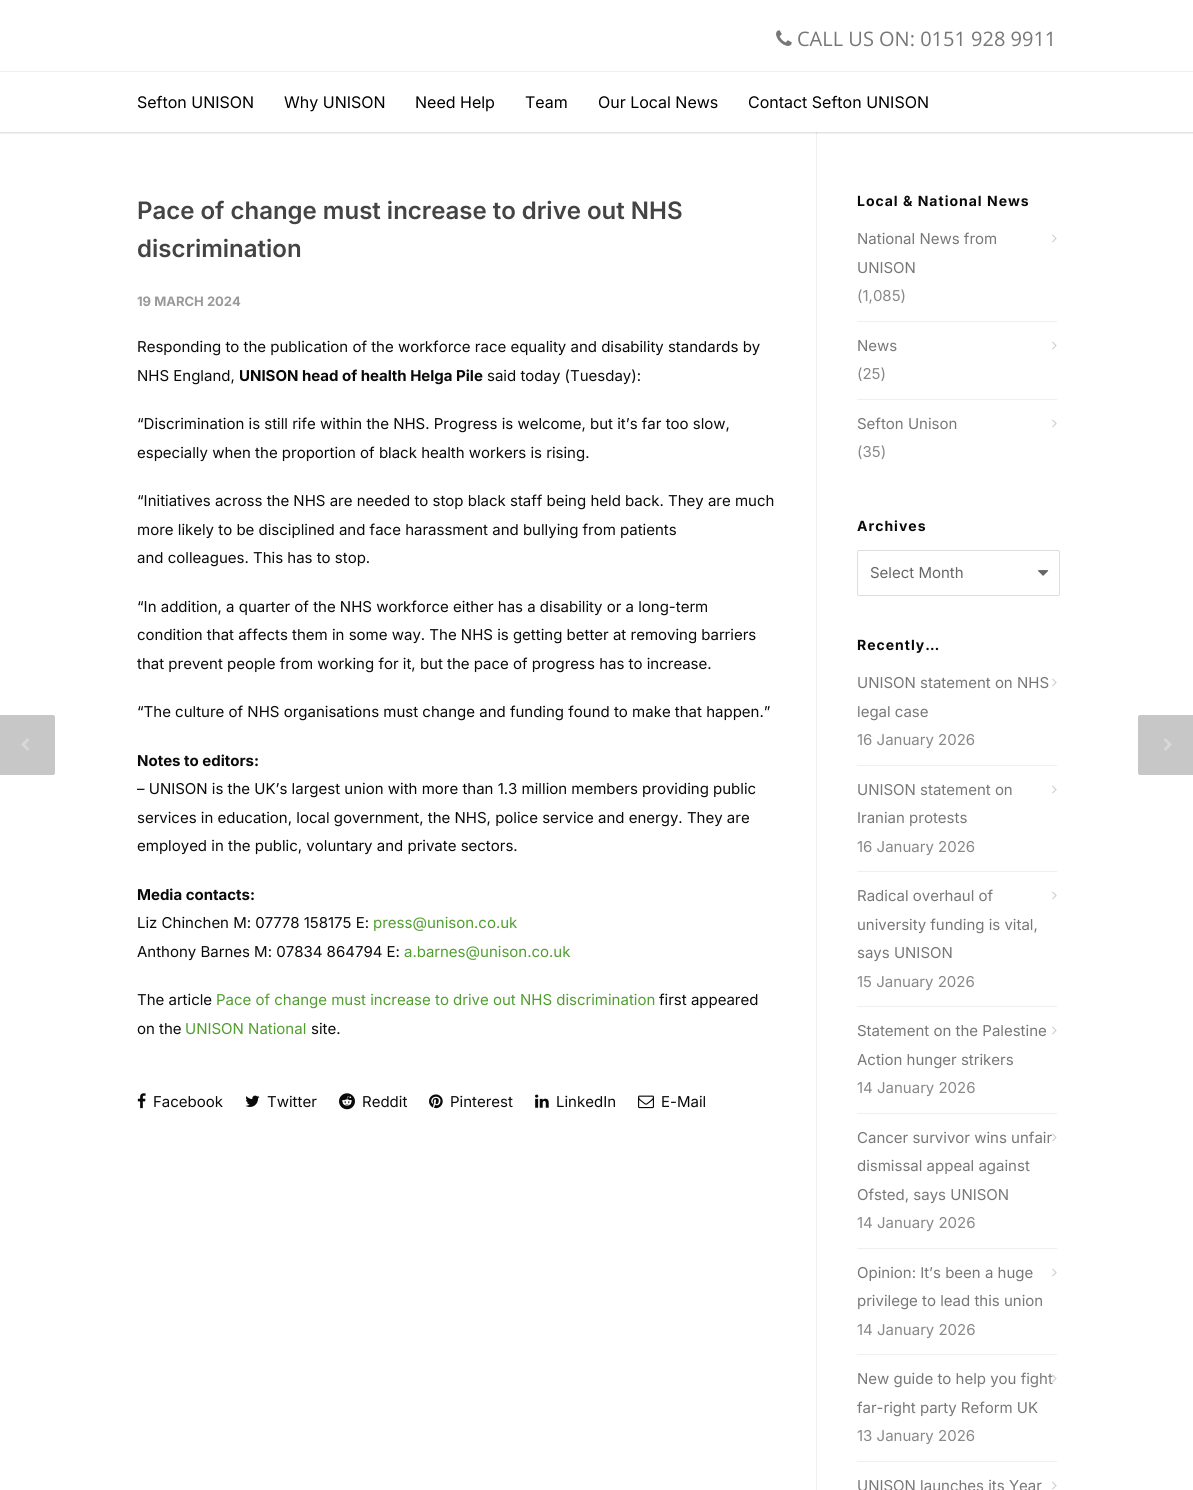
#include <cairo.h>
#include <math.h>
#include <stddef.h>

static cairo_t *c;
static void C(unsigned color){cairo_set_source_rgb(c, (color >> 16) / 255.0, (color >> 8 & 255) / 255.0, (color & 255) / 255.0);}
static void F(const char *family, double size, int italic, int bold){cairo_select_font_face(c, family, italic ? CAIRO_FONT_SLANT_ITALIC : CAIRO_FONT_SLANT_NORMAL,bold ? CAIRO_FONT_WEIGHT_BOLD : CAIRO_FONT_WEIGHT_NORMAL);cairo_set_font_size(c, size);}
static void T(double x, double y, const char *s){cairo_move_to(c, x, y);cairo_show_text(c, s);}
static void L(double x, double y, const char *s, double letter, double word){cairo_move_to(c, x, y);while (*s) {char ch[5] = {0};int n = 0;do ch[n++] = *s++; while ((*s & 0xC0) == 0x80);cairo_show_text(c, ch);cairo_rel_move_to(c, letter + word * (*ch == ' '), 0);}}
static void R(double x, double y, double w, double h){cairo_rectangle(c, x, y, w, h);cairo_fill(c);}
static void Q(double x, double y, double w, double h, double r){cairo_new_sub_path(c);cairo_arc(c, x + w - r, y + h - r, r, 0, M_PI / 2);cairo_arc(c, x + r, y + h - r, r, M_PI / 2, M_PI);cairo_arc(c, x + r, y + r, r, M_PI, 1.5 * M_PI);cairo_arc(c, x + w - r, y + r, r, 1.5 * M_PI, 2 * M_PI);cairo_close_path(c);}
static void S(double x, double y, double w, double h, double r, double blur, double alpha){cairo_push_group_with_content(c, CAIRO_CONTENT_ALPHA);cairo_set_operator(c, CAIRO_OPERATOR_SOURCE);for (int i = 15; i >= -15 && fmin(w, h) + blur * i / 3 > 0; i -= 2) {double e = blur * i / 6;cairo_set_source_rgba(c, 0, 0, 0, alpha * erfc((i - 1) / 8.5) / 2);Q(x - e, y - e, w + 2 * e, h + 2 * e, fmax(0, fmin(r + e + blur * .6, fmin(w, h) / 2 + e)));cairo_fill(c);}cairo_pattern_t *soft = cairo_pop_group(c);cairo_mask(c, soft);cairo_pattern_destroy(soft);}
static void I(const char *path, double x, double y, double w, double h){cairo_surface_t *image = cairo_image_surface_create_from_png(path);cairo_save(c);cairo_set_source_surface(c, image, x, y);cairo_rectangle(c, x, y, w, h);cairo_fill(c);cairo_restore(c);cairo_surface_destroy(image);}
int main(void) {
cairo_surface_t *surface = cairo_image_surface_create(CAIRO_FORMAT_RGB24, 1193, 1490);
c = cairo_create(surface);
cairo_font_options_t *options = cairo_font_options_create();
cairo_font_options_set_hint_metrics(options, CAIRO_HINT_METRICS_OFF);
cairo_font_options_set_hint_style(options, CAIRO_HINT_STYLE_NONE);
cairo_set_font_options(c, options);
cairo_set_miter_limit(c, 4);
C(0xffffff);
cairo_paint(c);
C(0xefefef);
R(816,132,1,1358);
cairo_save(c);
cairo_rectangle(c,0,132,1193,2);
cairo_clip(c);
C(0x000000);
S(-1,-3,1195,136,0,1,.16);
cairo_restore(c);
I("1.png",776,30,16,16);
F("Open Sans",20,0,0);
C(0x777777);
T(797,46,"CALL US ON: 0151 928 9911");
C(0xefefef);
R(0,71,1193,1);
F("Inter",16,0,0);
C(0x000000);
T(137,108,"Sefton UNISON");
T(284,108,"Why UNISON");
T(415,108,"Need Help");
T(525,108,"Team");
T(598,108,"Our Local News");
T(748,108,"Contact Sefton UNISON");
F("Inter SemiBold",24,0,0);
C(0x444444);
T(137,219,"Pace of change must increase to drive out NHS");
T(137,257,"discrimination");
F("Inter",13,0,1);
C(0x999999);
T(137,306,"19 MARCH 2024");
F("Inter",15,0,0);
C(0x0a0a0a);
T(137,352,"Responding to the publication of the workforce race equality and disability standards by");
T(137,381,"NHS England,");
F("Inter",15,0,1);
T(239,381,"UNISON head of health Helga Pile");
F("Inter",15,0,0);
T(487,381,"said today (Tuesday):");
T(137,429,"“Discrimination is still rife within the NHS. Progress is welcome, but it’s far too slow,");
T(137,458,"especially when the proportion of black health workers is rising.");
T(137,506,"“Initiatives across the NHS are needed to stop black staff being held back. They are much");
T(137,535,"more likely to be disciplined and face harassment and bullying from patients");
T(137,563,"and colleagues. This has to stop.");
T(137,612,"“In addition, a quarter of the NHS workforce either has a disability or a long-term");
T(137,640,"condition that affects them in some way. The NHS is getting better at removing barriers");
T(137,669,"that prevent people from working for it, but the pace of progress has to increase.");
T(137,717,"“The culture of NHS organisations must change and funding found to make that happen.”");
F("Inter",15,0,1);
T(137,766,"Notes to editors:");
F("Inter",15,0,0);
T(137,794,"– UNISON is the UK’s largest union with more than 1.3 million members providing public");
T(137,823,"services in education, local government, the NHS, police service and energy. They are");
T(137,851,"employed in the public, voluntary and private sectors.");
F("Inter",15,0,1);
T(137,900,"Media contacts:");
F("Inter",15,0,0);
T(137,928,"Liz Chinchen M: 07778 158175 E:");
C(0x509e2f);
T(373,928,"press@unison.co.uk");
C(0x0a0a0a);
T(137,957,"Anthony Barnes M: 07834 864794 E:");
C(0x509e2f);
T(404,957,"a.barnes@unison.co.uk");
C(0x0a0a0a);
T(137,1005,"The article");
C(0x509e2f);
T(216,1005,"Pace of change must increase to drive out NHS discrimination");
C(0x0a0a0a);
T(659,1005,"first appeared");
T(137,1034,"on the");
C(0x509e2f);
T(185,1034,"UNISON National");
C(0x0a0a0a);
T(311,1034,"site.");
C(0xc7c7c7);
cairo_new_path(c);
cairo_move_to(c,-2,715);
cairo_line_to(c,53,715);
cairo_curve_to(c,54,715,55,716,55,717);
cairo_line_to(c,55,773);
cairo_curve_to(c,55,774,54,775,53,775);
cairo_line_to(c,-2,775);
cairo_close_path(c);
cairo_fill(c);
I("2.png",21,738,8,13);
cairo_new_path(c);
cairo_move_to(c,1140,715);
cairo_line_to(c,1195,715);
cairo_line_to(c,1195,775);
cairo_line_to(c,1140,775);
cairo_curve_to(c,1139,775,1138,774,1138,773);
cairo_line_to(c,1138,717);
cairo_curve_to(c,1138,716,1139,715,1140,715);
cairo_close_path(c);
cairo_fill(c);
I("3.png",1164,738,8,13);
I("4.png",137,1093,9,16);
C(0x0a0a0a);
T(153,1107,"Facebook");
I("5.png",245,1095,15,12);
T(267,1107,"Twitter");
I("6.png",339,1093,16,17);
T(362,1107,"Reddit");
I("7.png",429,1094,14,15);
T(450,1107,"Pinterest");
I("8.png",535,1094,14,14);
T(556,1107,"LinkedIn");
I("9.png",638,1095,16,14);
T(661,1107,"E-Mail");
F("Inter",14,0,1);
L(857,206,"Local & National News",1,0);
C(0xefefef);
R(857,321,200,1);
F("Inter",15,0,0);
C(0x777777);
T(857,244,"National News from");
T(857,273,"UNISON");
I("10.png",1052,234,5,9);
C(0x888888);
T(857,301,"(1,085)");
C(0xefefef);
R(857,399,200,1);
C(0x777777);
T(857,351,"News");
I("10.png",1052,341,5,9);
C(0x888888);
T(857,379,"(25)");
C(0x777777);
T(857,429,"Sefton Unison");
I("10.png",1052,419,5,9);
C(0x888888);
T(857,457,"(35)");
F("Inter",14,0,1);
C(0x0a0a0a);
L(857,531,"Archives",1,0);
I("11.png",1038,570,11,6);
Q(857.5,550.5,202,45,1.5);
C(0xdddddd);
cairo_set_line_width(c,1);
cairo_stroke(c);
F("Inter",15,0,0);
C(0x666666);
T(870,578,"Select Month");
F("Inter",14,0,1);
C(0x0a0a0a);
L(857,650,"Recently…",1,0);
C(0xefefef);
R(857,765,200,1);
F("Inter",15,0,0);
C(0x777777);
T(857,688,"UNISON statement on NHS");
T(857,717,"legal case");
I("10.png",1052,678,5,9);
C(0x888888);
T(857,745,"16 January 2026");
C(0xefefef);
R(857,871,200,1);
C(0x777777);
T(857,795,"UNISON statement on");
T(857,823,"Iranian protests");
I("10.png",1052,785,5,9);
C(0x888888);
T(857,852,"16 January 2026");
C(0xefefef);
R(857,1006,200,1);
C(0x777777);
T(857,901,"Radical overhaul of");
T(857,930,"university funding is vital,");
T(857,958,"says UNISON");
I("10.png",1052,891,5,9);
C(0x888888);
T(857,987,"15 January 2026");
C(0xefefef);
R(857,1113,200,1);
C(0x777777);
T(857,1036,"Statement on the Palestine");
T(857,1065,"Action hunger strikers");
I("10.png",1052,1026,5,9);
C(0x888888);
T(857,1093,"14 January 2026");
C(0xefefef);
R(857,1248,200,1);
C(0x777777);
T(857,1143,"Cancer survivor wins unfair");
T(857,1171,"dismissal appeal against");
T(857,1200,"Ofsted, says UNISON");
I("10.png",1052,1133,5,9);
C(0x888888);
T(857,1228,"14 January 2026");
C(0xefefef);
R(857,1354,200,1);
C(0x777777);
T(857,1278,"Opinion: It’s been a huge");
T(857,1306,"privilege to lead this union");
I("10.png",1052,1268,5,9);
C(0x888888);
T(857,1335,"14 January 2026");
C(0xefefef);
R(857,1461,200,1);
C(0x777777);
T(857,1384,"New guide to help you fight");
T(857,1413,"far-right party Reform UK");
I("10.png",1052,1374,5,9);
C(0x888888);
T(857,1441,"13 January 2026");
C(0x777777);
T(857,1491,"UNISON launches its Year");
I("10.png",1052,1481,5,9);
cairo_surface_write_to_png(surface, "o.png");
cairo_font_options_destroy(options);
cairo_destroy(c);
cairo_surface_destroy(surface);
return 0;
}
